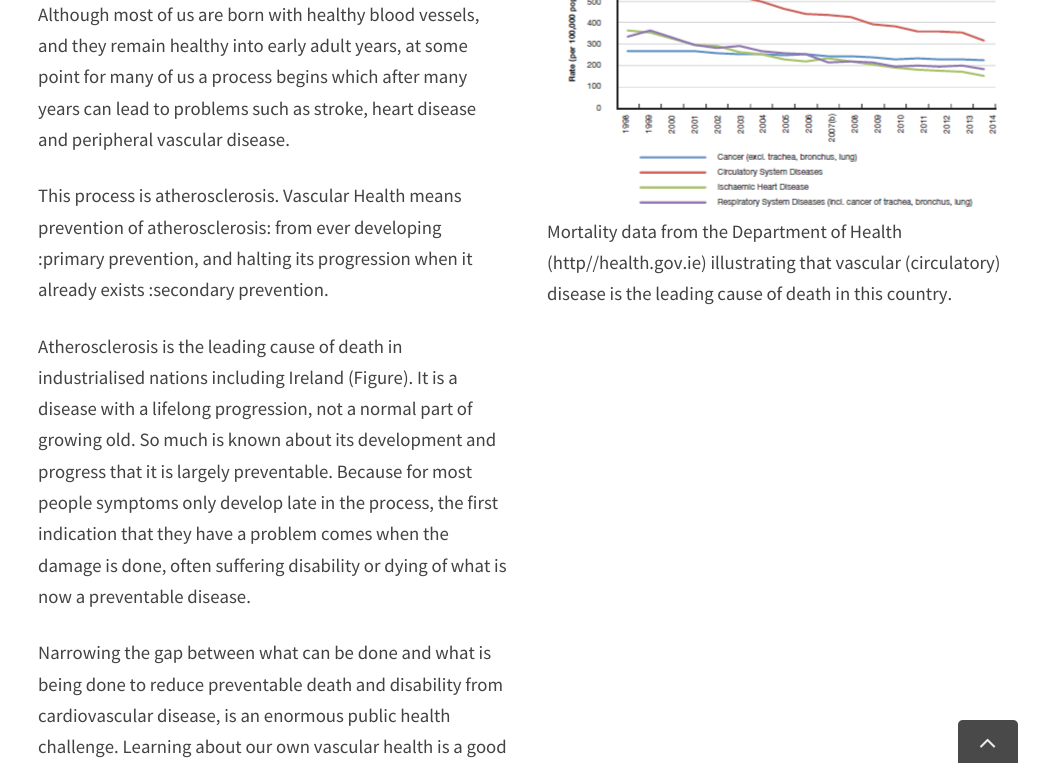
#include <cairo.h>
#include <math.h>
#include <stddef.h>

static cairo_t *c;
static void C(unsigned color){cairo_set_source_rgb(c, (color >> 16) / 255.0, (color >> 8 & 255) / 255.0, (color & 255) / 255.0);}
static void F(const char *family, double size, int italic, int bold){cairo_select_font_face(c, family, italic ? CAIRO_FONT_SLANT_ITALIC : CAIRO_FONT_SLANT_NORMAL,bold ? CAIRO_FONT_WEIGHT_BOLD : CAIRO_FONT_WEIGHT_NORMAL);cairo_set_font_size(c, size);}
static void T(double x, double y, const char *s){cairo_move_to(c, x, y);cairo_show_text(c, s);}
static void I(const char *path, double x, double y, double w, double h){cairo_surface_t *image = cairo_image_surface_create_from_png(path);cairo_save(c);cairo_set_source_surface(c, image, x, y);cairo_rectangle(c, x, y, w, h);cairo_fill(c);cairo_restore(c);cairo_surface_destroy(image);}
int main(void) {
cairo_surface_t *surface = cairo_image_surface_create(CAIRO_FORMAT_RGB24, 1054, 763);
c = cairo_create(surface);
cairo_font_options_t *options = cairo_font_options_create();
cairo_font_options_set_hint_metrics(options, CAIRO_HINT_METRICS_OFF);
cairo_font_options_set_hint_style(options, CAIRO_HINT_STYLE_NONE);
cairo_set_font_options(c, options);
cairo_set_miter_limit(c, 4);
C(0xffffff);
cairo_paint(c);
F("Source Sans Pro",18.75,0,0);
C(0x424143);
T(38,21,"Although most of us are born with healthy blood vessels,");
T(38,52,"and they remain healthy into early adult years, at some");
T(38,83,"point for many of us a process begins which after many");
T(38,115,"years can lead to problems such as stroke, heart disease");
T(38,146,"and peripheral vascular disease.");
T(38,202,"This process is atherosclerosis. Vascular Health means");
T(38,234,"prevention of atherosclerosis: from ever developing");
T(38,265,":primary prevention, and halting its progression when it");
T(38,296,"already exists :secondary prevention.");
T(38,353,"Atherosclerosis is the leading cause of death in");
T(38,384,"industrialised nations including Ireland (Figure). It is a");
T(38,415,"disease with a lifelong progression, not a normal part of");
T(38,446,"growing old. So much is known about its development and");
T(38,478,"progress that it is largely preventable. Because for most");
T(38,509,"people symptoms only develop late in the process, the first");
T(38,540,"indication that they have a problem comes when the");
T(38,572,"damage is done, often suffering disability or dying of what is");
T(38,603,"now a preventable disease.");
T(38,659,"Narrowing the gap between what can be done and what is");
T(38,691,"being done to reduce preventable death and disability from");
T(38,722,"cardiovascular disease, is an enormous public health");
T(38,753,"challenge. Learning about our own vascular health is a good");
I("1.png",567,0,430,207);
T(547,238,"Mortality data from the Department of Health");
T(547,269,"(http//health.gov.ie) illustrating that vascular (circulatory)");
T(547,300,"disease is the leading cause of death in this country.");
C(0x494949);
cairo_new_path(c);
cairo_move_to(c,963,720);
cairo_line_to(c,1013,720);
cairo_curve_to(c,1016,720,1018,722,1018,725);
cairo_line_to(c,1018,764);
cairo_line_to(c,958,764);
cairo_line_to(c,958,725);
cairo_curve_to(c,958,722,960,720,963,720);
cairo_close_path(c);
cairo_fill(c);
I("2.png",980,738,16,10);
cairo_surface_write_to_png(surface, "o.png");
cairo_font_options_destroy(options);
cairo_destroy(c);
cairo_surface_destroy(surface);
return 0;
}
